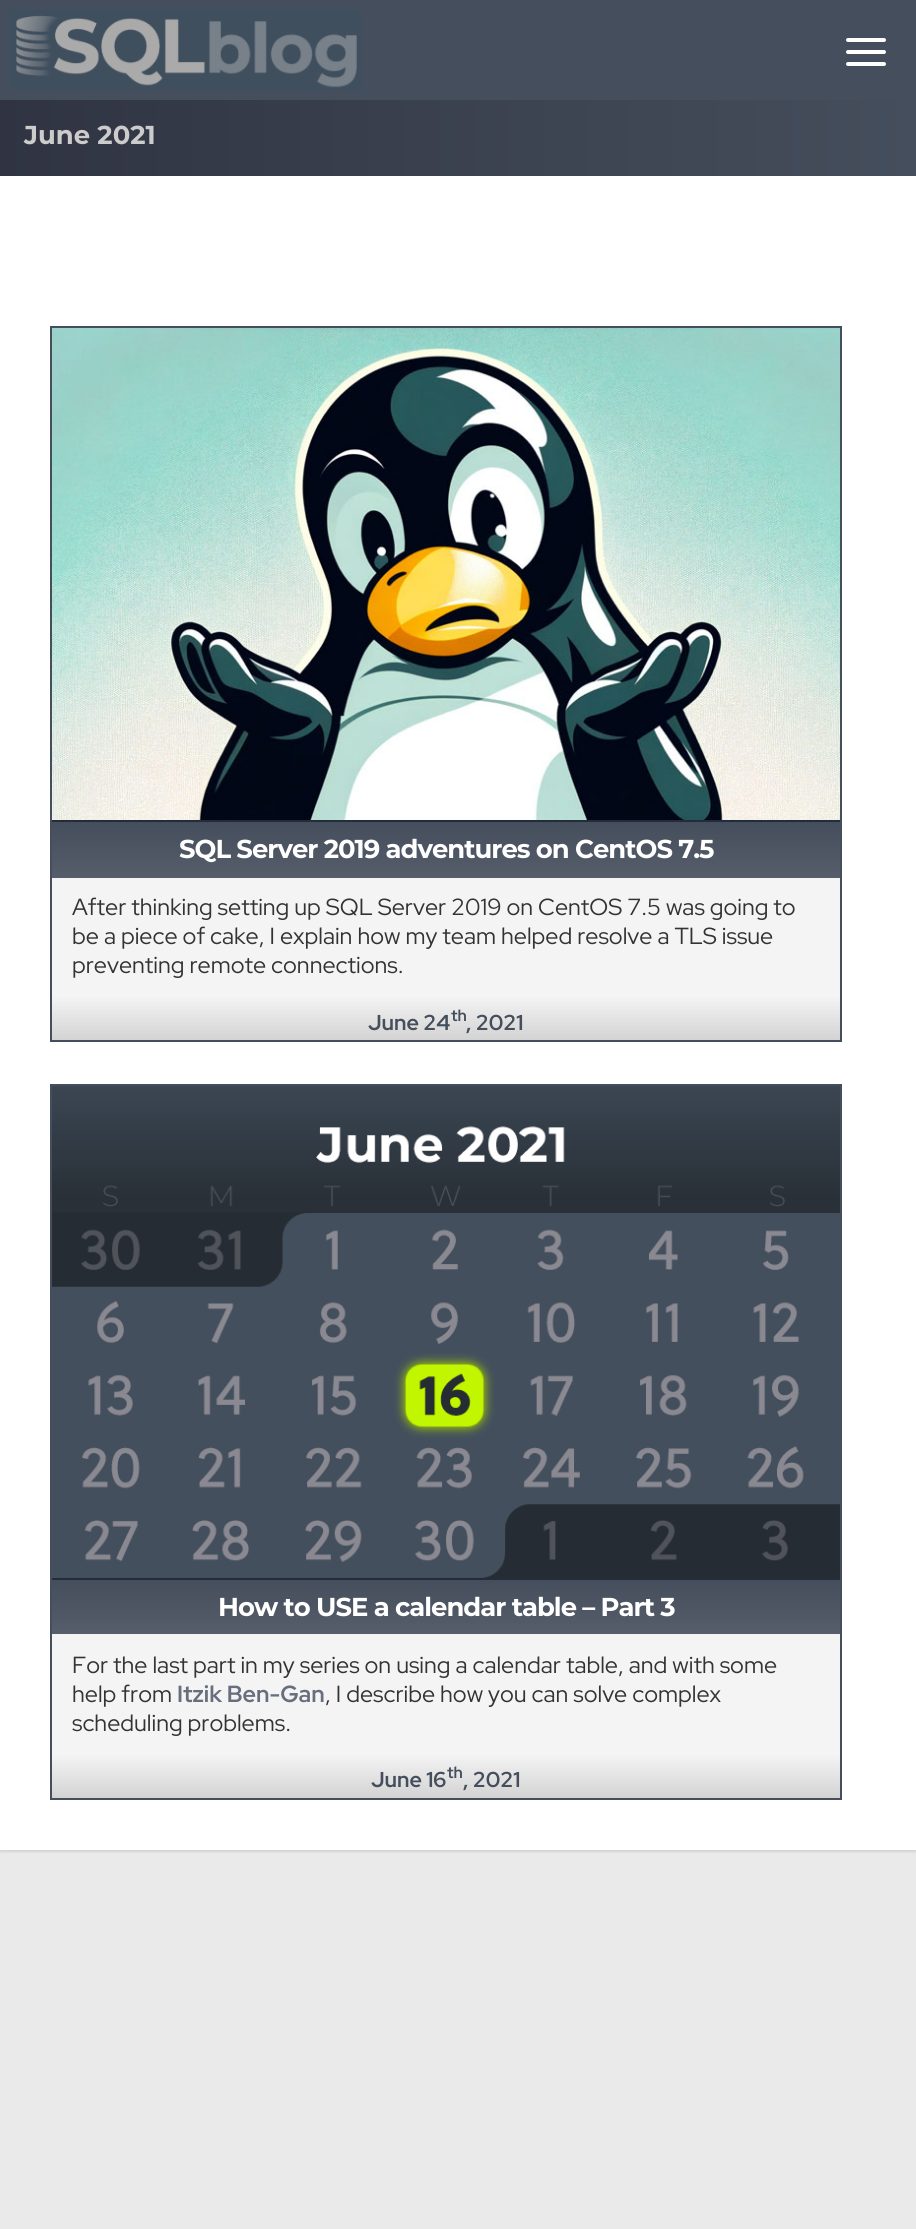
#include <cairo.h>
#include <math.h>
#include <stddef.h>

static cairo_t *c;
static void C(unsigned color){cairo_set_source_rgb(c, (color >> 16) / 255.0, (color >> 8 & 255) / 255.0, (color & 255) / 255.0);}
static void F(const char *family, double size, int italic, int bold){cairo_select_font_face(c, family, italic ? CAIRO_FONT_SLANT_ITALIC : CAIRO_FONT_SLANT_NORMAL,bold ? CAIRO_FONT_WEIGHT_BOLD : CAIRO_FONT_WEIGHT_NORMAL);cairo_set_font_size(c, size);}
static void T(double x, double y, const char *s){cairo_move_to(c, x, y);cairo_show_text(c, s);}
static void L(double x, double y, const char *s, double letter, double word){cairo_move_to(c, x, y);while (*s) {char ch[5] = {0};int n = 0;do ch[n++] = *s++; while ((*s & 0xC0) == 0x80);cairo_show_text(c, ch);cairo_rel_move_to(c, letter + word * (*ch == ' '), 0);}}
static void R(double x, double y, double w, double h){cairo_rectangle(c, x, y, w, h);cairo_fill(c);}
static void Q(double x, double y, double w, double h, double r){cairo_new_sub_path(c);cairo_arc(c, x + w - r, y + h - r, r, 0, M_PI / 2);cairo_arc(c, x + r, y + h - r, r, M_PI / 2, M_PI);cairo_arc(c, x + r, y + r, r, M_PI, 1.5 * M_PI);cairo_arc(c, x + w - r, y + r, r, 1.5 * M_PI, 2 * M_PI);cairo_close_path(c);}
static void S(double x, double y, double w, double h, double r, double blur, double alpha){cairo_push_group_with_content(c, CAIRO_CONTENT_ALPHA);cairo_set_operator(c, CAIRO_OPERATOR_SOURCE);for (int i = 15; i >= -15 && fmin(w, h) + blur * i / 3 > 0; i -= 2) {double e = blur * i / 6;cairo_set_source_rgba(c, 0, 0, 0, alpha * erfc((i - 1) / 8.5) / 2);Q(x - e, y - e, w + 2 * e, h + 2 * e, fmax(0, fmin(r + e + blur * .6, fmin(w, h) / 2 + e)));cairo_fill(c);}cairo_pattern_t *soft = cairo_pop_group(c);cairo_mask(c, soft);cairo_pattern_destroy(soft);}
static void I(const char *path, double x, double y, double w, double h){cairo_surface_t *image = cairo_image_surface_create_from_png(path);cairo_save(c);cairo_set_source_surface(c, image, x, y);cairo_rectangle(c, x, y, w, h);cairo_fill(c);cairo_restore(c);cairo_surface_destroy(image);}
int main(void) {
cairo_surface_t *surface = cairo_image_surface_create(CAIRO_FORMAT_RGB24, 916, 2229);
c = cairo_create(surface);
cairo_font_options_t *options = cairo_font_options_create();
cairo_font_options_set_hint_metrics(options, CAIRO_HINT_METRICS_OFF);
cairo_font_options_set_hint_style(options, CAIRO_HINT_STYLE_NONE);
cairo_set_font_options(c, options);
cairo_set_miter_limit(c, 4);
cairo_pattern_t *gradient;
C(0xeaeaea);
cairo_paint(c);
C(0x000000);
S(0,2,916,1850,0,1,.1);
C(0x454e5c);
R(0,0,916,100);
I("1.png",10,10,352,80);
C(0xffffff);
Q(846,38,40,4,2);
cairo_fill(c);
Q(846,50,40,4,2);
cairo_fill(c);
Q(846,62,40,4,2);
cairo_fill(c);
R(0,176,916,1674);
gradient = cairo_pattern_create_linear(0,134,916,134);
cairo_pattern_add_color_stop_rgba(gradient,0,0.188,0.204,0.259,1);
cairo_pattern_add_color_stop_rgba(gradient,1,0.271,0.306,0.361,1);
cairo_set_source(c,gradient);
cairo_pattern_destroy(gradient);
R(0,100,916,76);
F("Montserrat",25.9,0,1);
C(0xcccccc);
T(24,144,"June 2021");
cairo_rectangle(c,51,327,790,714);
C(0x454e5c);
cairo_stroke(c);
C(0xf4f4f4);
R(52,878,788,118);
I("2.png",52,328,788,492);
gradient = cairo_pattern_create_linear(446,822,446,878);
cairo_pattern_add_color_stop_rgba(gradient,0,0.271,0.306,0.361,1);
cairo_pattern_add_color_stop_rgba(gradient,1,0.337,0.365,0.42,1);
cairo_set_source(c,gradient);
cairo_pattern_destroy(gradient);
R(52,822,788,56);
C(0x232c3a);
R(52,820,788,2);
C(0xffffff);
L(179,858,"SQL Server 2019 adventures on CentOS 7.5",-1,0);
F("Red Hat Display",23.3,0,0);
C(0x333333);
T(72,915,"After thinking setting up SQL Server 2019 on CentOS 7.5 was going to");
T(72,944,"be a piece of cake, I explain how my team helped resolve a TLS issue");
T(72,973,"preventing remote connections.");
gradient = cairo_pattern_create_linear(446,996,446,1040);
cairo_pattern_add_color_stop_rgba(gradient,0,0.957,0.957,0.957,1);
cairo_pattern_add_color_stop_rgba(gradient,1,0.827,0.827,0.827,1);
cairo_set_source(c,gradient);
cairo_pattern_destroy(gradient);
R(52,996,788,44);
F("Red Hat Display",21.5,0,1);
C(0x454e5c);
T(368,1030,"June 24");
F("Red Hat Display",16,0,1);
T(451,1021,"th");
F("Red Hat Display",21.5,0,1);
T(466,1030,", 2021");
cairo_rectangle(c,51,1085,790,714);
cairo_stroke(c);
C(0xf4f4f4);
R(52,1634,788,120);
I("3.png",52,1086,788,492);
gradient = cairo_pattern_create_linear(446,1580,446,1634);
cairo_pattern_add_color_stop_rgba(gradient,0,0.271,0.306,0.361,1);
cairo_pattern_add_color_stop_rgba(gradient,1,0.337,0.365,0.42,1);
cairo_set_source(c,gradient);
cairo_pattern_destroy(gradient);
R(52,1580,788,54);
C(0x232c3a);
R(52,1578,788,2);
F("Montserrat",25.9,0,1);
C(0xffffff);
L(218,1616,"How to USE a calendar table – Part 3",-1,0);
F("Red Hat Display",23.3,0,0);
C(0x333333);
T(72,1673,"For the last part in my series on using a calendar table, and with some");
T(72,1702,"help from");
F("Red Hat Display",23.3,0,1);
C(0x676f7e);
T(177,1702,"Itzik Ben-Gan");
F("Red Hat Display",23.3,0,0);
C(0x333333);
T(325,1702,", I describe how you can solve complex");
T(72,1731,"scheduling problems.");
gradient = cairo_pattern_create_linear(446,1754,446,1798);
cairo_pattern_add_color_stop_rgba(gradient,0,0.957,0.957,0.957,1);
cairo_pattern_add_color_stop_rgba(gradient,1,0.827,0.827,0.827,1);
cairo_set_source(c,gradient);
cairo_pattern_destroy(gradient);
R(52,1754,788,44);
F("Red Hat Display",21.5,0,1);
C(0x454e5c);
T(371,1787,"June 16");
F("Red Hat Display",16,0,1);
T(447,1778,"th");
F("Red Hat Display",21.5,0,1);
T(463,1787,", 2021");
cairo_surface_write_to_png(surface, "o.png");
cairo_font_options_destroy(options);
cairo_destroy(c);
cairo_surface_destroy(surface);
return 0;
}
